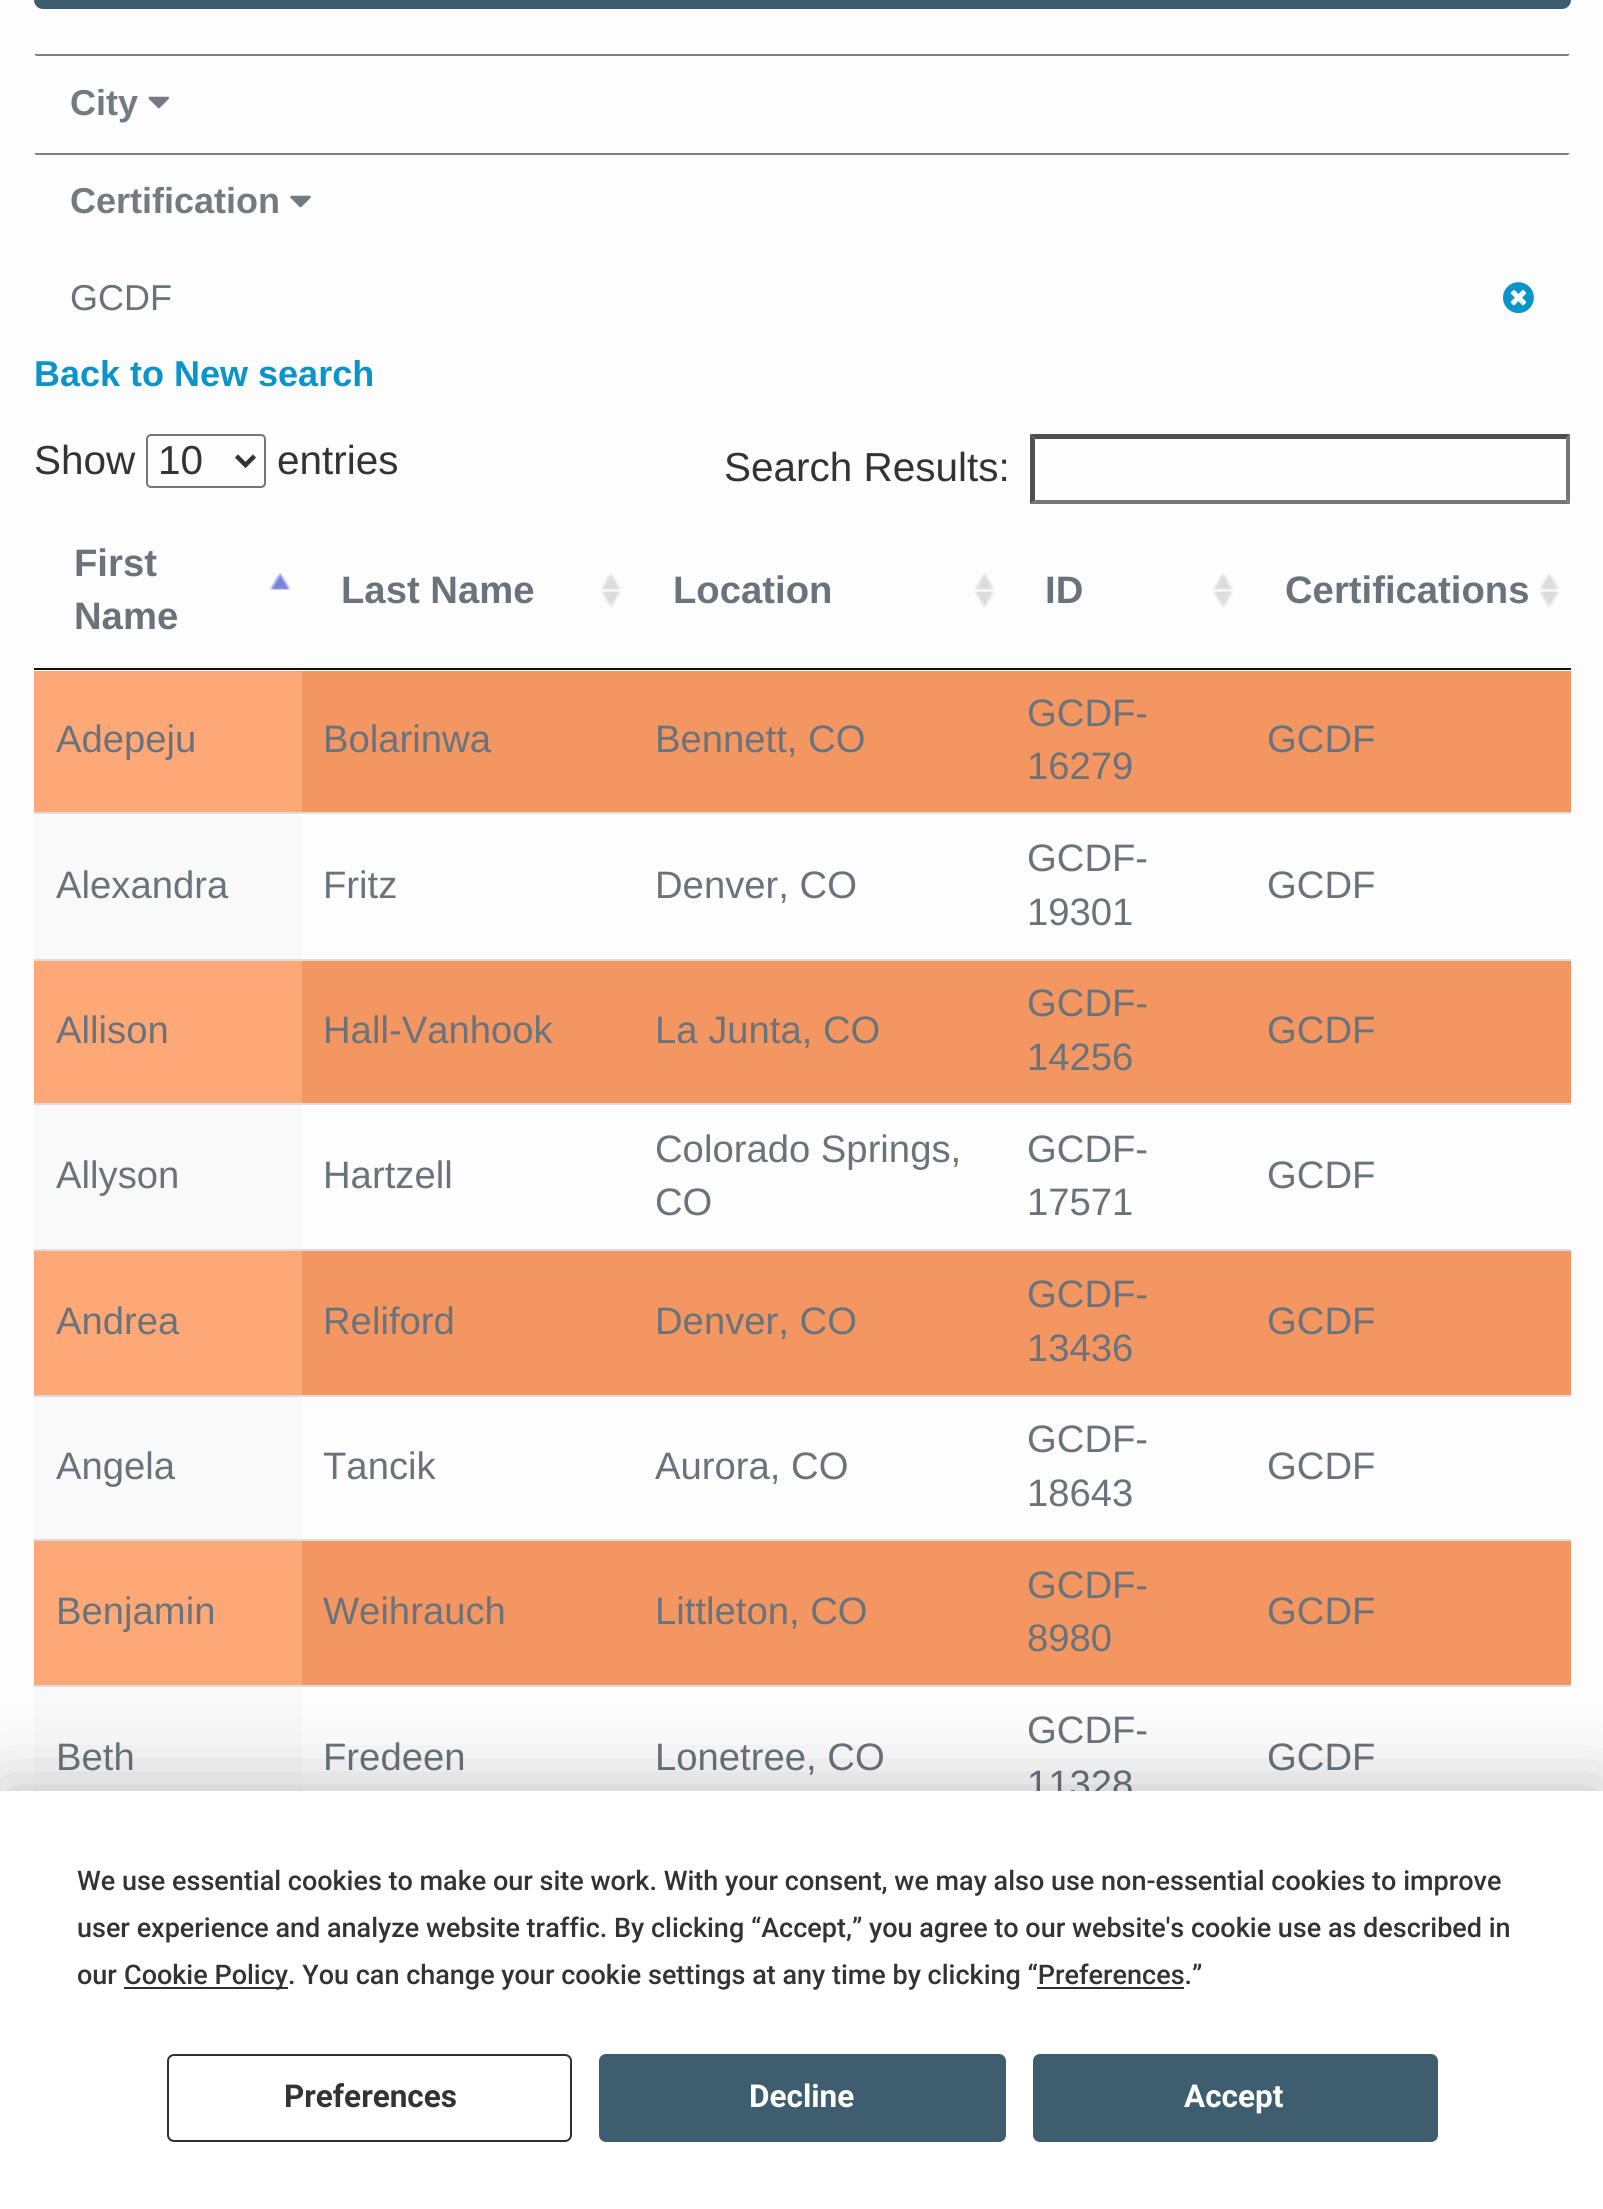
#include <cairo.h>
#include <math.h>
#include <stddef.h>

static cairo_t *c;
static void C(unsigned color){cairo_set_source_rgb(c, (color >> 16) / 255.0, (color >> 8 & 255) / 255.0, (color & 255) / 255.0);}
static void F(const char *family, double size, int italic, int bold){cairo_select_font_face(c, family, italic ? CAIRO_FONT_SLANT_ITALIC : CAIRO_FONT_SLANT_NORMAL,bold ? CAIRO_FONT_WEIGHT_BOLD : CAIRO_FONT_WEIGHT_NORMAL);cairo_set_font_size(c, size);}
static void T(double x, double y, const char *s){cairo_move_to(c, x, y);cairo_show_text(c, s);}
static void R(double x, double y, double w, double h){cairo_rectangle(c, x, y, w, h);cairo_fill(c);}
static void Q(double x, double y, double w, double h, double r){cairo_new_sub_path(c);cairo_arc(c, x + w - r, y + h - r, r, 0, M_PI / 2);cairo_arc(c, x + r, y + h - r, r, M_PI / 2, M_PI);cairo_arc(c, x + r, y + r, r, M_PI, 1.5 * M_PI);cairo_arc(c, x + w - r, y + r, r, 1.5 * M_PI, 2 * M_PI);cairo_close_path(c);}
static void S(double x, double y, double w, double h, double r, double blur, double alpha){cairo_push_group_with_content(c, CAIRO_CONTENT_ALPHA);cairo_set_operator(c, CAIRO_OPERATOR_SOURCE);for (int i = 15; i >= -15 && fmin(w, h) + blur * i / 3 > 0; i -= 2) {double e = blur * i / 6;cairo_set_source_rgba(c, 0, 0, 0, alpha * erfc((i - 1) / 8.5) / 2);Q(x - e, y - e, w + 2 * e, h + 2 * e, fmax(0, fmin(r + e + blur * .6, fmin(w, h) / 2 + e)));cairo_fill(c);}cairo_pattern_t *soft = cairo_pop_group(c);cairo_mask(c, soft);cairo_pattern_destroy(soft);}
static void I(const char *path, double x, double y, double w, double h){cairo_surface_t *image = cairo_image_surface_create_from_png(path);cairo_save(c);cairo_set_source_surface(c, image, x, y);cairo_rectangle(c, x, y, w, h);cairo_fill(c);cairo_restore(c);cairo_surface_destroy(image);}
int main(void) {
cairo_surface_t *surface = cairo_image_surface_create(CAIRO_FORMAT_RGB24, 1603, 2209);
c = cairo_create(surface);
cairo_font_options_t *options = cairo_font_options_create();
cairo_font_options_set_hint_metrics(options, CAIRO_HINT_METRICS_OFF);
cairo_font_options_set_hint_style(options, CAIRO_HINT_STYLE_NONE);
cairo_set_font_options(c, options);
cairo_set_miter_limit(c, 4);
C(0xfdfdfd);
cairo_paint(c);
C(0x3d5d6f);
Q(34,-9,1537,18,9);
cairo_fill(c);
C(0x808080);
cairo_new_path(c);
cairo_move_to(c,34,54);
cairo_line_to(c,1570,54);
cairo_line_to(c,1568,56);
cairo_line_to(c,36,56);
cairo_close_path(c);
cairo_fill(c);
F("Liberation Sans",36,0,1);
C(0x737b82);
T(70,115,"City");
I("1.png",148,96,21,13);
C(0x808080);
cairo_new_path(c);
cairo_move_to(c,34,153);
cairo_line_to(c,1570,153);
cairo_line_to(c,1568,155);
cairo_line_to(c,36,155);
cairo_close_path(c);
cairo_fill(c);
C(0x737b82);
T(70,213,"Certification");
I("2.png",290,195,21,13);
F("Liberation Sans",36,0,0);
C(0x6a737b);
T(70,310,"GCDF");
I("3.png",1503,282,31,32);
F("Liberation Sans",36,0,1);
C(0x0a94ca);
T(34,386,"Back to New search");
F("Liberation Sans",40.5,0,0);
C(0x333333);
T(34,474,"Show");
Q(147,435,118,52,4);
C(0x767676);
cairo_stroke(c);
cairo_new_path(c);
cairo_move_to(c,236.5,456);
cairo_line_to(c,245.5,465);
cairo_line_to(c,254.5,456);
C(0x333333);
cairo_set_line_width(c,4.5);
cairo_stroke(c);
T(158,474,"10");
T(277,474,"entries");
T(724,481,"Search Results:");
C(0x4f4f4f);
cairo_new_path(c);
cairo_move_to(c,1030,434);
cairo_line_to(c,1570,434);
cairo_line_to(c,1566,439);
cairo_line_to(c,1035,439);
cairo_close_path(c);
cairo_fill(c);
C(0x767676);
cairo_new_path(c);
cairo_move_to(c,1570,434);
cairo_line_to(c,1570,504);
cairo_line_to(c,1566,500);
cairo_line_to(c,1566,439);
cairo_close_path(c);
cairo_fill(c);
cairo_new_path(c);
cairo_move_to(c,1570,504);
cairo_line_to(c,1030,504);
cairo_line_to(c,1035,500);
cairo_line_to(c,1566,500);
cairo_close_path(c);
cairo_fill(c);
C(0x4f4f4f);
cairo_new_path(c);
cairo_move_to(c,1030,504);
cairo_line_to(c,1030,434);
cairo_line_to(c,1035,439);
cairo_line_to(c,1035,500);
cairo_close_path(c);
cairo_fill(c);
I("4.png",269,573,22,17);
C(0x111111);
R(34,668,1537,2);
F("Liberation Sans",38.25,0,1);
C(0x6a737b);
T(74,576,"First");
T(74,629,"Name");
I("5.png",601,573,20,35);
T(341,603,"Last Name");
I("6.png",974,573,21,35);
T(673,603,"Location");
I("5.png",1213,573,20,35);
T(1045,603,"ID");
I("7.png",1539,573,21,35);
T(1285,603,"Certifications");
C(0xf39662);
R(302,671,1269,141);
C(0xffa877);
R(34,671,268,141);
F("Liberation Sans",38.25,0,0);
C(0x6a737b);
T(56,752,"Adepeju");
T(323,752,"Bolarinwa");
T(655,752,"Bennett, CO");
T(1027,726,"GCDF-");
T(1027,779,"16279");
T(1267,752,"GCDF");
C(0xf9f9f9);
R(34,814,268,145);
C(0xdddddd);
R(34,812,1537,2);
C(0x6a737b);
T(56,898,"Alexandra");
T(323,898,"Fritz");
T(655,898,"Denver, CO");
T(1027,871,"GCDF-");
T(1027,925,"19301");
T(1267,898,"GCDF");
C(0xf39662);
R(302,961,1269,142);
C(0xffa877);
R(34,961,268,142);
C(0xdddddd);
R(34,959,1537,2);
C(0x6a737b);
T(56,1043,"Allison");
T(323,1043,"Hall-Vanhook");
T(655,1043,"La Junta, CO");
T(1027,1016,"GCDF-");
T(1027,1070,"14256");
T(1267,1043,"GCDF");
C(0xf9f9f9);
R(34,1105,268,144);
C(0xdddddd);
R(34,1103,1537,2);
C(0x6a737b);
T(56,1188,"Allyson");
T(323,1188,"Hartzell");
T(655,1162,"Colorado Springs,");
T(655,1215,"CO");
T(1027,1162,"GCDF-");
T(1027,1215,"17571");
T(1267,1188,"GCDF");
C(0xf39662);
R(302,1251,1269,144);
C(0xffa877);
R(34,1251,268,144);
C(0xdddddd);
R(34,1249,1537,2);
C(0x6a737b);
T(56,1334,"Andrea");
T(323,1334,"Reliford");
T(655,1334,"Denver, CO");
T(1027,1307,"GCDF-");
T(1027,1361,"13436");
T(1267,1334,"GCDF");
C(0xf9f9f9);
R(34,1397,268,142);
C(0xdddddd);
R(34,1395,1537,2);
C(0x6a737b);
T(56,1479,"Angela");
T(323,1479,"Tancik");
T(655,1479,"Aurora, CO");
T(1027,1452,"GCDF-");
T(1027,1506,"18643");
T(1267,1479,"GCDF");
C(0xf39662);
R(302,1541,1269,144);
C(0xffa877);
R(34,1541,268,144);
C(0xdddddd);
R(34,1539,1537,2);
C(0x6a737b);
T(56,1624,"Benjamin");
T(323,1624,"Weihrauch");
T(655,1624,"Littleton, CO");
T(1027,1598,"GCDF-");
T(1027,1651,"8980");
T(1267,1624,"GCDF");
C(0xf9f9f9);
R(34,1687,268,104);
C(0xdddddd);
R(34,1685,1537,2);
C(0x6a737b);
T(56,1770,"Beth");
T(323,1770,"Fredeen");
T(655,1770,"Lonetree, CO");
T(1027,1743,"GCDF-");
T(1027,1797,"11328");
T(1267,1770,"GCDF");
C(0x000000);
S(0,1791,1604,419,0,39.5,.25);
C(0xffffff);
R(0,1791,1603,418);
F("Roboto Medium",27,0,0);
C(0x333333);
T(77,1890,"We use essential cookies to make our site work. With your consent, we may also use non-essential cookies to improve");
T(77,1937,"user experience and analyze website traffic. By clicking “Accept,” you agree to our website's cookie use as described in");
T(77,1984,"our");
C(0x303030);
R(124,1987,164,2);
C(0x333333);
T(124,1984,"Cookie Policy. You can change your cookie settings at any time by clicking “Preferences.”");
C(0x303030);
R(1037,1987,147,2);
Q(168,2055,403,86,6);
cairo_set_line_width(c,2);
cairo_stroke(c);
F("Roboto",31.5,0,1);
C(0x333333);
T(284,2107,"Preferences");
C(0x3e5e6f);
Q(600,2055,405,86,6);
cairo_fill_preserve(c);
cairo_stroke(c);
C(0xffffff);
T(749,2107,"Decline");
C(0x3e5e6f);
Q(1034,2055,403,86,6);
cairo_fill_preserve(c);
cairo_stroke(c);
C(0xffffff);
T(1184,2107,"Accept");
cairo_surface_write_to_png(surface, "o.png");
cairo_font_options_destroy(options);
cairo_destroy(c);
cairo_surface_destroy(surface);
return 0;
}
